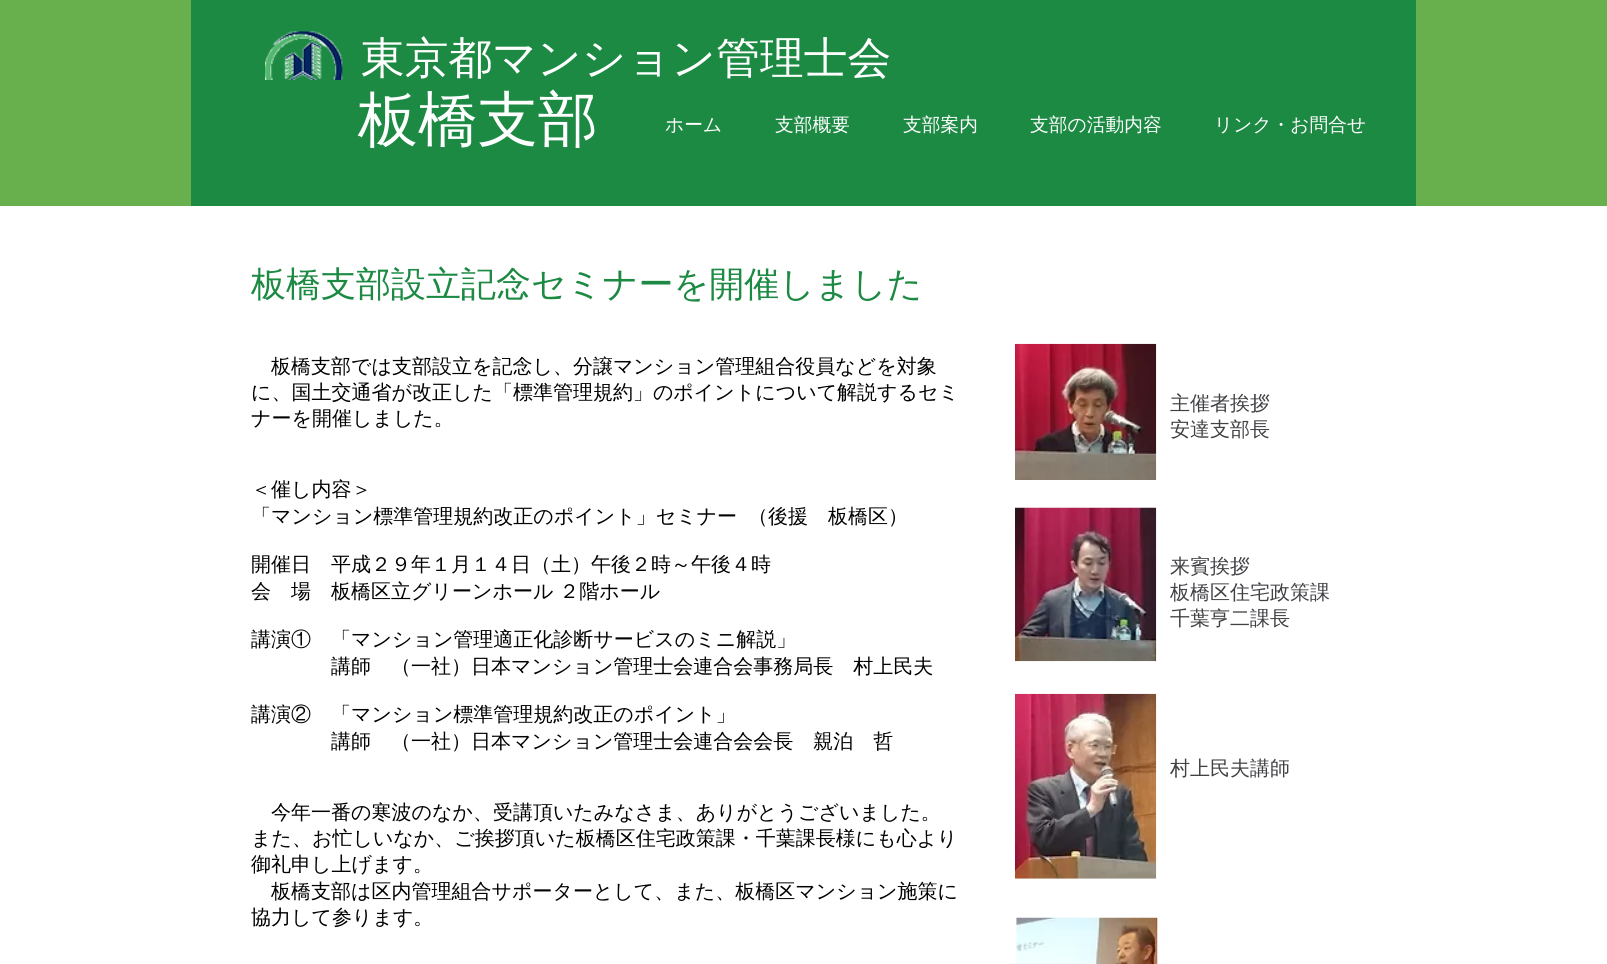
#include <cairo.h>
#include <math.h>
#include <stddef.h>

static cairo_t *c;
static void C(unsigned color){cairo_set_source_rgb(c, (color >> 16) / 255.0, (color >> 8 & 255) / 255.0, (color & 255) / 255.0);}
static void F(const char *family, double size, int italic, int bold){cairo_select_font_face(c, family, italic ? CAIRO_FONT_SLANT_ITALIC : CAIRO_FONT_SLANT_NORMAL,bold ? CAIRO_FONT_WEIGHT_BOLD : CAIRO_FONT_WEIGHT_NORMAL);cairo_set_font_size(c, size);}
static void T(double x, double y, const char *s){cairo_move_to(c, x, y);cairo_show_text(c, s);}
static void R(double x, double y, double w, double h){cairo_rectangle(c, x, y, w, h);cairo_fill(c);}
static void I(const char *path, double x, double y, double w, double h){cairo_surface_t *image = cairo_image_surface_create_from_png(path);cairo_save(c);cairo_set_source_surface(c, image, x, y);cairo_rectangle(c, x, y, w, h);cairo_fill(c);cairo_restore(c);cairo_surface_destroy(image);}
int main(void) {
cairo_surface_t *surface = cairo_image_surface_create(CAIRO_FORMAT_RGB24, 1607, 964);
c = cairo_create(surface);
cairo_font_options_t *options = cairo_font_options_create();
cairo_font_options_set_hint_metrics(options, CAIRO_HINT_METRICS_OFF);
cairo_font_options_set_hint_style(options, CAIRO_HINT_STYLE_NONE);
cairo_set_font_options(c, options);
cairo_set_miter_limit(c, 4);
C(0xffffff);
cairo_paint(c);
C(0x68b04d);
R(0,0,1607,206);
C(0x1c8a43);
R(191,0,1225,206);
I("1.png",265,31,78,49);
F("WenQuanYi Zen Hei Medium",43.75,0,0);
C(0xffffff);
T(361,73,"東京都マンション管理士会");
F("WenQuanYi Zen Hei Medium",60,0,0);
T(358,140,"板橋支部");
F("WenQuanYi Zen Hei Medium",18.75,0,0);
T(665,131,"ホーム");
T(775,131,"支部概要");
T(903,131,"支部案内");
T(1030,131,"支部の活動内容");
T(1214,131,"リンク・お問合せ");
F("WenQuanYi Zen Hei Medium",35,0,0);
C(0x1c8a43);
T(251,296,"板橋支部設立記念セミナーを開催しました");
F("WenQuanYi Zen Hei Medium",20,0,0);
C(0x000000);
T(271,373,"板橋支部では支部設立を記念し、分譲マンション管理組合役員などを対象");
T(251,399,"に、国土交通省が改正した「標準管理規約」のポイントについて解説するセミ");
T(251,425,"ナーを開催しました。");
T(251,496,"＜催し内容＞");
T(251,523,"「マンション標準管理規約改正のポイント」セミナー");
T(748,523,"（後援　板橋区）");
T(251,571,"開催日　平成２９年１月１４日（土）午後２時～午後４時");
T(251,598,"会　場　板橋区立グリーンホール ２階ホール");
T(251,646,"講演①　「マンション管理適正化診断サービスのミニ解説」");
T(331,673,"講師　（一社）日本マンション管理士会連合会事務局長　村上民夫");
T(251,721,"講演②　「マンション標準管理規約改正のポイント」");
T(331,748,"講師　（一社）日本マンション管理士会連合会会長　親泊　哲");
T(271,819,"今年一番の寒波のなか、受講頂いたみなさま、ありがとうございました。");
T(251,845,"また、お忙しいなか、ご挨拶頂いた板橋区住宅政策課・千葉課長様にも心より");
T(251,871,"御礼申し上げます。");
T(271,898,"板橋支部は区内管理組合サポーターとして、また、板橋区マンション施策に");
T(251,924,"協力して参ります。");
I("2.png",1015,343,142,137);
C(0x404144);
T(1170,410,"主催者挨拶");
T(1170,436,"安達支部長");
I("3.png",1015,507,142,155);
T(1170,573,"来賓挨拶");
T(1170,599,"板橋区住宅政策課");
T(1170,625,"千葉亨二課長");
I("4.png",1015,693,142,186);
T(1170,775,"村上民夫講師");
I("5.png",1016,917,142,47);
cairo_surface_write_to_png(surface, "o.png");
cairo_font_options_destroy(options);
cairo_destroy(c);
cairo_surface_destroy(surface);
return 0;
}
